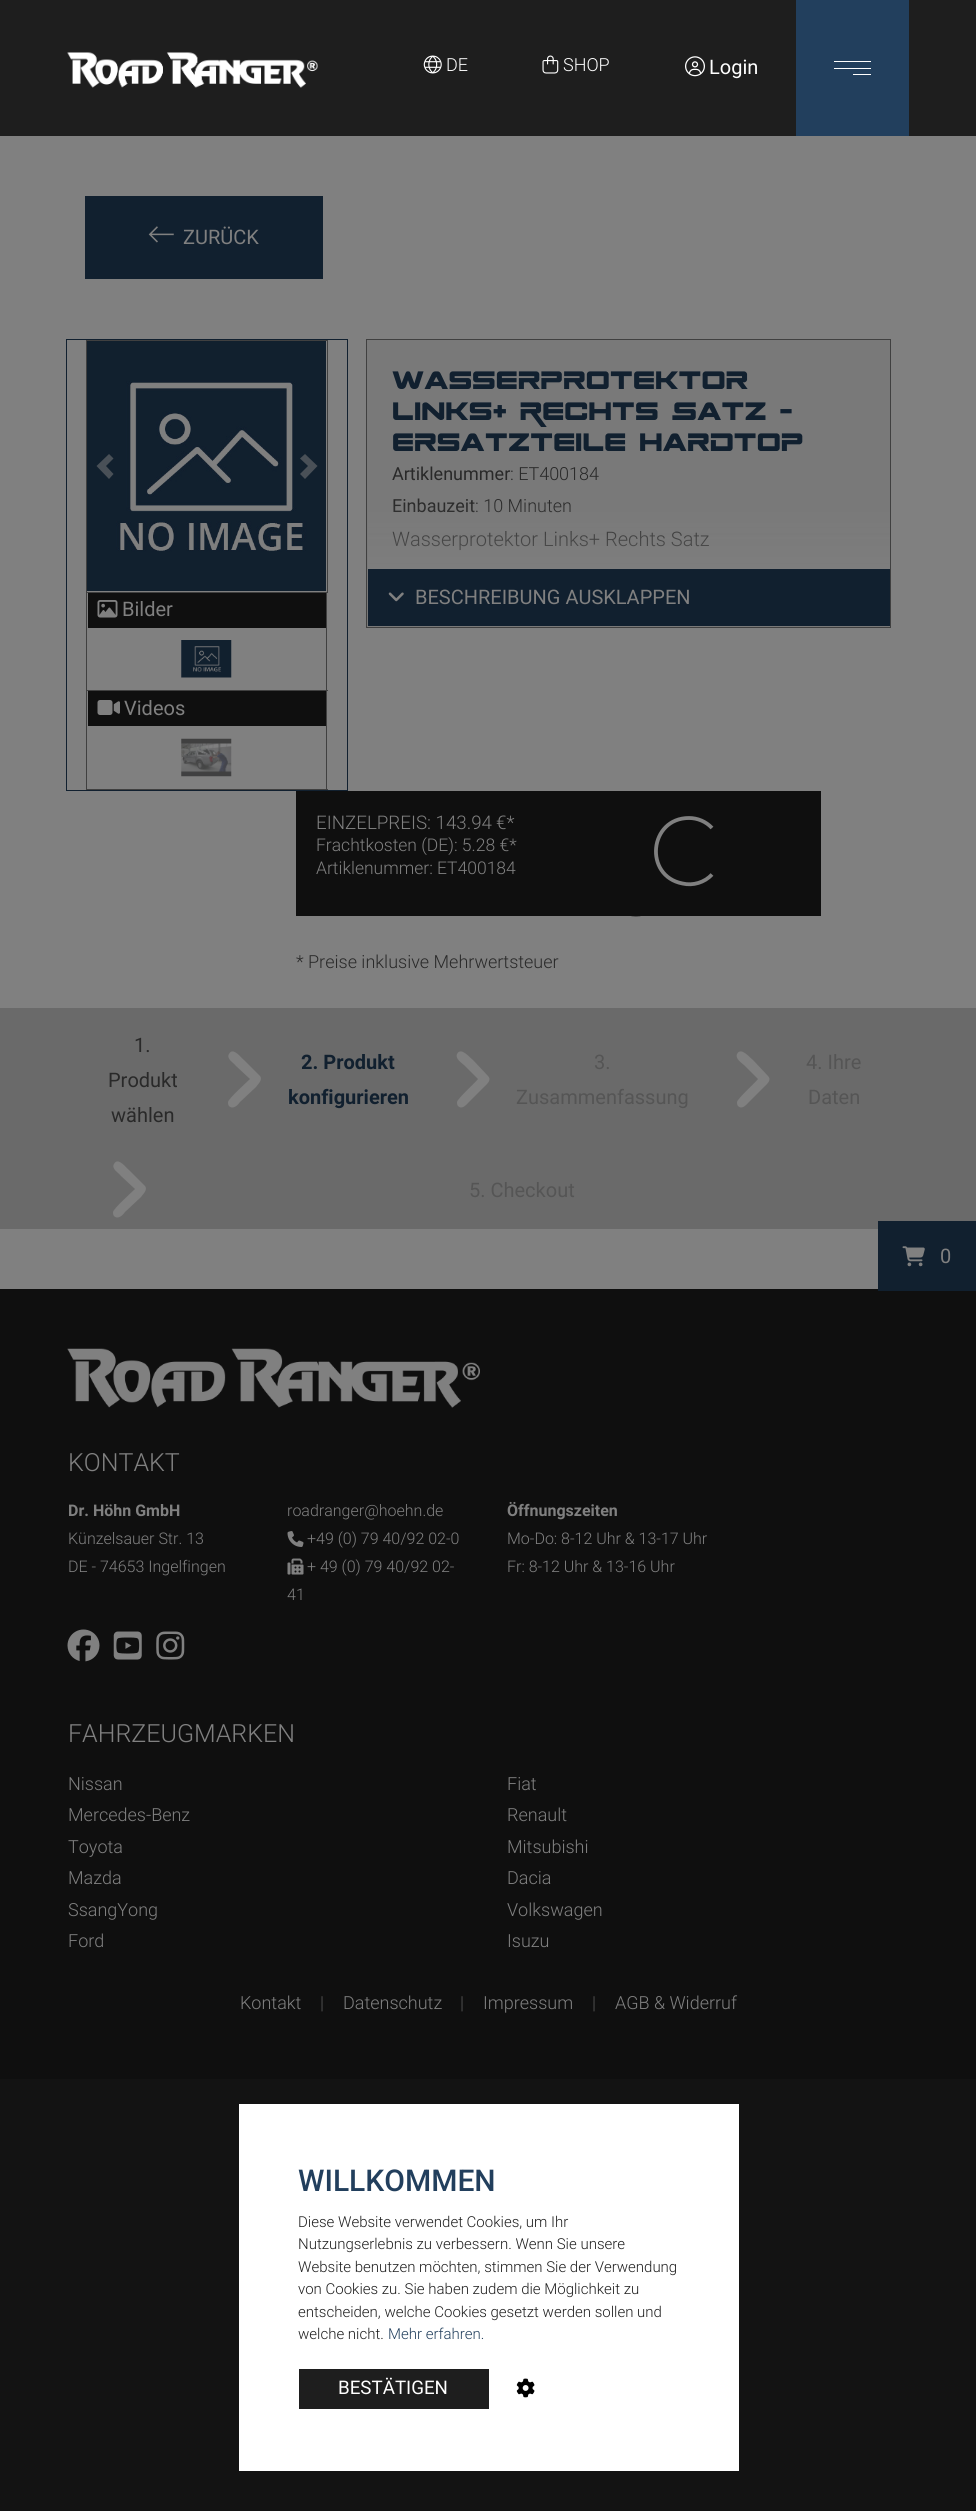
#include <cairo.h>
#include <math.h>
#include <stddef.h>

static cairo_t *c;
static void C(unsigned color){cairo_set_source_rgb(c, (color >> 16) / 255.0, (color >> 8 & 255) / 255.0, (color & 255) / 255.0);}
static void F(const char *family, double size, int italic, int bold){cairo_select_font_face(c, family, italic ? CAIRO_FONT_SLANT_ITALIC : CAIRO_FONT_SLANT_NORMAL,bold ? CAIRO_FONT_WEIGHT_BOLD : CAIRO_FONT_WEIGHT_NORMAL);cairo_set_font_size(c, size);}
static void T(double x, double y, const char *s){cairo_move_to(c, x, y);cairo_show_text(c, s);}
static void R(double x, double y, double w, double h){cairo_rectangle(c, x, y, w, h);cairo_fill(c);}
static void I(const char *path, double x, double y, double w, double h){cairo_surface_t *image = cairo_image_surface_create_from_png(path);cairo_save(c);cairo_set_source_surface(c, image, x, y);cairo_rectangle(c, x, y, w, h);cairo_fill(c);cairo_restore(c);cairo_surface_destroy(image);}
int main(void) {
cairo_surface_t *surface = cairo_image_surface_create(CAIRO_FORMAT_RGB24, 976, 2511);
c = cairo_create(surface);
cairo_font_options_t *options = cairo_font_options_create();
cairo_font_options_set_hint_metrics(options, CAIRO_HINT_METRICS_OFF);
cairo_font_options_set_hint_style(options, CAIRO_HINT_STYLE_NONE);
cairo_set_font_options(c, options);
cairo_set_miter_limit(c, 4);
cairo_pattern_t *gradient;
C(0x131313);
cairo_paint(c);
C(0x1e1e1e);
R(0,0,976,136);
I("1.png",67,52,251,36);
I("2.png",423,55,19,19);
F("Roboto Light",18,0,0);
C(0xffffff);
T(446,71,"DE");
I("3.png",542,55,17,19);
T(563,71,"SHOP");
I("4.png",685,56,20,21);
F("Roboto",20,0,0);
T(709,74,"Login");
C(0x223f5d);
R(796,0,113,136);
C(0xffffff);
R(834,61,37,1);
R(834,68,37,1);
R(853,74,18,1);
R(239,2104,500,367);
F("Roboto Medium",30,0,0);
C(0x223f5d);
T(298,2191,"WILLKOMMEN");
F("Roboto Light",15,0,0);
C(0x1e1e1e);
T(298,2227,"Diese Website verwendet Cookies, um Ihr");
T(298,2249,"Nutzungserlebnis zu verbessern. Wenn Sie unsere");
T(298,2272,"Website benutzen möchten, stimmen Sie der Verwendung");
T(298,2294,"von Cookies zu. Sie haben zudem die Möglichkeit zu");
T(298,2317,"entscheiden, welche Cookies gesetzt werden sollen und");
T(298,2339,"welche nicht.");
C(0x223f5d);
T(388,2339,"Mehr erfahren.");
C(0x1e1e1e);
R(299,2369,190,40);
F("Roboto",18.75,0,0);
C(0xffffff);
T(338,2394,"BESTÄTIGEN");
I("5.png",516,2378,19,20);
C(0x808080);
R(0,136,976,872);
C(0x11202f);
R(85,196,238,83);
I("6.png",148,226,26,17);
F("Roboto",20,0,0);
C(0x808080);
T(183,244,"ZURÜCK");
C(0x797979);
cairo_rectangle(c,366.5,339.5,524,288);
cairo_fill_preserve(c);
C(0x404040);
cairo_set_line_width(c,1);
cairo_stroke(c);
F("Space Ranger",35,0,0);
C(0x11202f);
T(392,389,"Wasserprotektor");
T(392,420,"Links+ Rechts Satz -");
T(392,451,"ersatzteile hardtop");
F("Roboto",18,0,0);
C(0x292929);
T(392,480,"Artiklenummer");
F("Roboto Light",18,0,0);
T(510,480,": ET400184");
F("Roboto",18,0,0);
T(392,512,"Einbauzeit");
F("Roboto Light",18,0,0);
T(475,512,": 10 Minuten");
F("Roboto Light",20,0,0);
T(392,546,"Wasserprotektor Links+ Rechts Satz");
gradient = cairo_pattern_create_linear(629,626,629,501);
cairo_pattern_add_color_stop_rgba(gradient,.06,0.502,0.502,0.502,1);
cairo_pattern_add_color_stop_rgba(gradient,1,0.502,0.502,0.502,0);
cairo_set_source(c,gradient);
cairo_pattern_destroy(gradient);
R(368,504,522,65);
C(0x11202f);
R(368,569,522,57);
I("7.png",388,592,16,10);
F("Roboto",20,0,0);
C(0x808080);
T(415,604,"BESCHREIBUNG AUSKLAPPEN");
cairo_rectangle(c,66.5,339.5,281,451);
C(0x11202f);
cairo_stroke(c);
cairo_rectangle(c,86.5,340.5,241,252);
C(0x404040);
cairo_stroke(c);
I("8.png",87,341,239,250);
C(0x495057);
cairo_new_path(c);
cairo_move_to(c,109,454);
cairo_line_to(c,96.5,466);
cairo_line_to(c,109,479);
cairo_line_to(c,113.5,474);
cairo_line_to(c,106,466);
cairo_line_to(c,113.5,458.5);
cairo_close_path(c);
cairo_fill(c);
cairo_new_path(c);
cairo_move_to(c,305,454);
cairo_line_to(c,300,458.5);
cairo_line_to(c,308,466);
cairo_line_to(c,300,474);
cairo_line_to(c,305,479);
cairo_line_to(c,317.5,466);
cairo_close_path(c);
cairo_fill(c);
C(0x404040);
R(326,593,1,197);
R(86,690,242,1);
R(86,593,1,98);
C(0x0f0f0f);
R(88,593,238,35);
I("9.png",97,600,21,18);
C(0x808080);
T(122,616,"Bilder");
I("10.png",181,640,51,38);
C(0x404040);
R(86,789,242,1);
R(86,691,1,99);
C(0x0f0f0f);
R(88,691,238,35);
I("11.png",97,700,23,15);
C(0x808080);
T(124,715,"Videos");
I("12.png",181,738,51,39);
C(0x0f0f0f);
R(296,791,525,125);
F("Roboto Light",18.75,0,0);
C(0x808080);
T(316,829,"EINZELPREIS: 143.94");
T(496,829,"€*");
F("Roboto Light",17.5,0,0);
T(316,851,"Frachtkosten (DE): 5.28 €*");
T(316,874,"Artiklenummer: ET400184");
cairo_new_path(c);
cairo_move_to(c,659.5,904.5);
cairo_curve_to(c,653.5,911,645,914.5,636,914.5);
cairo_curve_to(c,596.5,914.5,591,856.5,630,849);
cairo_curve_to(c,640.5,846.5,652,850,659.5,858);
C(0x0f0f0f);
cairo_set_line_width(c,3.8);
cairo_stroke(c);
cairo_new_path(c);
cairo_move_to(c,712,874.5);
cairo_curve_to(c,704.5,882.5,693,886,682.5,883.5);
cairo_curve_to(c,643.5,876,649,818,689,818);
cairo_curve_to(c,697.5,818,706,821.5,712,828);
C(0x808080);
cairo_stroke(c);
F("Roboto Light",18,0,0);
C(0x292929);
T(296,968,"* Preise inklusive Mehrwertsteuer");
C(0x808080);
R(0,1229,878,60);
C(0x6a6a6a);
R(0,1008,976,221);
F("Roboto",20,0,0);
C(0x292929);
T(134,1052,"1.");
T(108,1087,"Produkt");
T(111,1122,"wählen");
C(0x808080);
cairo_new_path(c);
cairo_move_to(c,260,1076);
cairo_curve_to(c,263,1080,258,1084,256,1087);
cairo_line_to(c,240,1102);
cairo_curve_to(c,238,1105,233,1110,229,1106);
cairo_curve_to(c,228,1105,228,1103,228,1102);
cairo_curve_to(c,229,1098,246,1083,250,1079);
cairo_line_to(c,236,1066);
cairo_curve_to(c,234,1063,226,1059,229,1054);
cairo_curve_to(c,233,1046,242,1059,244,1060);
cairo_close_path(c);
cairo_fill(c);
F("Roboto",20,0,1);
C(0x11202f);
T(301,1069,"2. Produkt");
T(288,1104,"konfigurieren");
C(0x808080);
cairo_new_path(c);
cairo_move_to(c,488,1076);
cairo_curve_to(c,492,1080,487,1084,484,1087);
cairo_line_to(c,469,1102);
cairo_curve_to(c,466,1105,462,1110,458,1106);
cairo_curve_to(c,457,1105,457,1103,457,1102);
cairo_curve_to(c,458,1098,475,1083,478,1079);
cairo_line_to(c,465,1066);
cairo_curve_to(c,462,1063,455,1059,457,1054);
cairo_curve_to(c,461,1046,471,1059,473,1060);
cairo_close_path(c);
cairo_fill(c);
F("Roboto",20,0,0);
C(0x555555);
T(594,1069,"3.");
T(516,1104,"Zusammenfassung");
C(0x808080);
cairo_new_path(c);
cairo_move_to(c,768,1076);
cairo_curve_to(c,772,1080,767,1084,764,1087);
cairo_line_to(c,749,1102);
cairo_curve_to(c,746,1105,742,1110,738,1106);
cairo_curve_to(c,737,1105,737,1103,737,1102);
cairo_curve_to(c,738,1098,755,1083,758,1079);
cairo_line_to(c,745,1066);
cairo_curve_to(c,742,1063,735,1059,737,1054);
cairo_curve_to(c,741,1046,751,1059,753,1060);
cairo_close_path(c);
cairo_fill(c);
C(0x555555);
T(806,1069,"4. Ihre");
T(808,1104,"Daten");
C(0x808080);
cairo_new_path(c);
cairo_move_to(c,145,1186);
cairo_curve_to(c,148,1190,143,1194,141,1197);
cairo_line_to(c,125,1212);
cairo_curve_to(c,123,1215,118,1220,114,1216);
cairo_curve_to(c,113,1215,113,1213,113,1212);
cairo_curve_to(c,114,1208,131,1193,135,1189);
cairo_line_to(c,121,1176);
cairo_curve_to(c,119,1173,111,1169,114,1164);
cairo_curve_to(c,118,1156,127,1169,129,1170);
cairo_close_path(c);
cairo_fill(c);
C(0x555555);
T(469,1197,"5. Checkout");
C(0x0f0f0f);
R(0,1289,976,790);
C(0x11202f);
R(878,1221,98,70);
I("13.png",902,1246,23,21);
C(0x808080);
T(940,1263,"0");
I("14.png",67,1348,413,60);
F("Roboto Light",25,0,0);
T(68,1471,"KONTAKT");
F("Roboto",16,0,1);
T(68,1516,"Dr. Höhn GmbH");
F("Roboto Light",16,0,0);
T(68,1544,"Künzelsauer Str. 13");
T(68,1572,"DE - 74653 Ingelfingen");
T(287,1516,"roadranger@hoehn.de");
I("15.png",287,1531,17,16);
T(307,1544,"+49 (0) 79 40/92 02-0");
I("16.png",287,1558,17,17);
T(307,1572,"+ 49 (0) 79 40/92 02-");
T(287,1600,"41");
F("Roboto",16,0,1);
T(507,1516,"Öffnungszeiten");
F("Roboto Light",16,0,0);
T(507,1544,"Mo-Do: 8-12 Uhr & 13-17 Uhr");
T(507,1572,"Fr: 8-12 Uhr & 13-16 Uhr");
I("17.png",67,1629,33,33);
I("18.png",113,1631,29,29);
I("19.png",156,1631,29,29);
F("Roboto Light",25,0,0);
T(68,1742,"FAHRZEUGMARKEN");
F("Roboto Light",18,0,0);
T(68,1790,"Nissan");
T(507,1790,"Fiat");
T(68,1821,"Mercedes-Benz");
T(507,1821,"Renault");
T(68,1853,"Toyota");
T(507,1853,"Mitsubishi");
T(68,1884,"Mazda");
T(507,1884,"Dacia");
T(68,1916,"SsangYong");
T(507,1916,"Volkswagen");
T(68,1947,"Ford");
T(507,1947,"Isuzu");
T(240,2009,"Kontakt");
C(0x555555);
T(320,2009,"|");
C(0x808080);
T(343,2009,"Datenschutz");
C(0x555555);
T(460,2009,"|");
C(0x808080);
T(483,2009,"Impressum");
C(0x555555);
T(592,2009,"|");
C(0x808080);
T(615,2009,"AGB & Widerruf");
cairo_surface_write_to_png(surface, "o.png");
cairo_font_options_destroy(options);
cairo_destroy(c);
cairo_surface_destroy(surface);
return 0;
}
